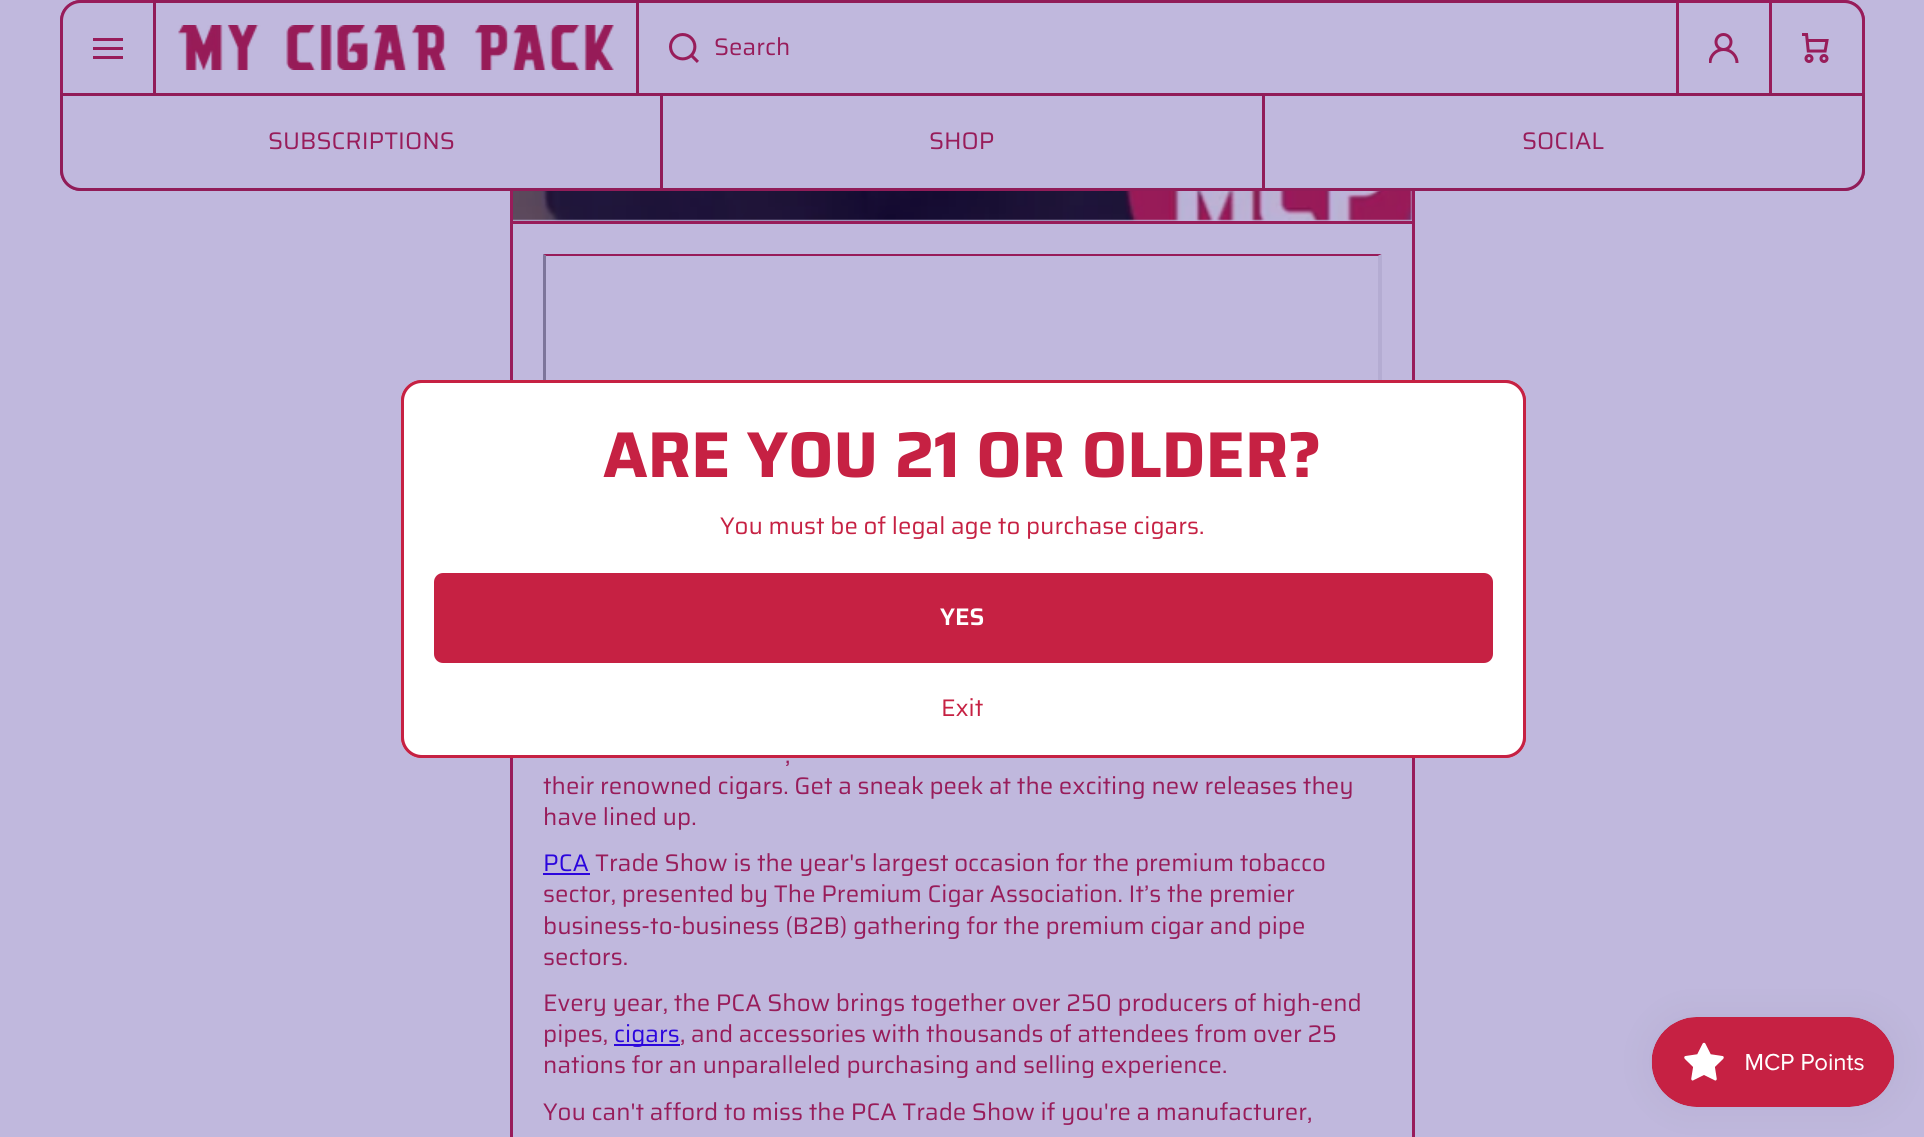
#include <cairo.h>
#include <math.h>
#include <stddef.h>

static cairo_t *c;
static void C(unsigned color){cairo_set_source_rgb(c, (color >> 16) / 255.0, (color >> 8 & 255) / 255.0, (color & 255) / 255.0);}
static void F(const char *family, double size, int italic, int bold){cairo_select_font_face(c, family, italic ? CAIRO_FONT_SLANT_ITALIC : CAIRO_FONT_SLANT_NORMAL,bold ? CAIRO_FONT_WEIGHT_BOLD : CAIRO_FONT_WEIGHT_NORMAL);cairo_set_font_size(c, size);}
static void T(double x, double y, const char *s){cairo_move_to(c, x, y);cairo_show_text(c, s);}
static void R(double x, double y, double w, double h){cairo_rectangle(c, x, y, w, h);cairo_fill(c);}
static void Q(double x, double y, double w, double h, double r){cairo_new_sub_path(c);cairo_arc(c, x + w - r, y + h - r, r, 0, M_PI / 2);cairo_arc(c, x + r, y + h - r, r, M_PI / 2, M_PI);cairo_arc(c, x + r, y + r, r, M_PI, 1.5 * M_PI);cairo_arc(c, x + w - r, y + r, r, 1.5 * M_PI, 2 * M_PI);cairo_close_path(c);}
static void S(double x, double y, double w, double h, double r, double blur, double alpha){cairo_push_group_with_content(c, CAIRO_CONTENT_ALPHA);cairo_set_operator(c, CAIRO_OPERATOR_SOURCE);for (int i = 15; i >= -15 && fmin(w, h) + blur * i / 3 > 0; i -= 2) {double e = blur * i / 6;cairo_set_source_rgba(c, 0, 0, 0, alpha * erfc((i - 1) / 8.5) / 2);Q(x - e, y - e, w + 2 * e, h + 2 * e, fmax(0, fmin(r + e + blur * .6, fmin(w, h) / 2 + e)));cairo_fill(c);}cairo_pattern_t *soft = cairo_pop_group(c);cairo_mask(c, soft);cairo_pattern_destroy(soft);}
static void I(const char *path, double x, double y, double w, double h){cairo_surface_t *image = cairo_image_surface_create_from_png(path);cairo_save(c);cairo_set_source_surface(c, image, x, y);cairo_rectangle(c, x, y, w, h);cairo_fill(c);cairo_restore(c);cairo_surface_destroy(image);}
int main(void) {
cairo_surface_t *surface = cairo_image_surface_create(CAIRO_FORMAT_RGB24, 1924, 1137);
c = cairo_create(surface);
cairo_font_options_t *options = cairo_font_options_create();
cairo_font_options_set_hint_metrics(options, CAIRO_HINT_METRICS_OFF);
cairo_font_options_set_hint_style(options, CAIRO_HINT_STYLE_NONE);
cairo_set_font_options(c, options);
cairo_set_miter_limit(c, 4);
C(0xc0b8dd);
cairo_paint(c);
cairo_rectangle(c,511.5,-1.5,902,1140);
C(0x981c5a);
cairo_set_line_width(c,3);
cairo_stroke(c);
C(0xc0b8dd);
R(510,0,905,191);
Q(61.5,1.5,1802,188,19.5);
C(0x981c5a);
cairo_stroke(c);
C(0xc0b8dd);
cairo_new_path(c);
cairo_move_to(c,81,1.5);
cairo_line_to(c,154.5,1.5);
cairo_line_to(c,154.5,94.5);
cairo_line_to(c,61.5,94.5);
cairo_line_to(c,61.5,21);
cairo_curve_to(c,61.5,10,70,1.5,81,1.5);
cairo_close_path(c);
cairo_fill_preserve(c);
C(0x981c5a);
cairo_stroke(c);
R(93,38,30,3);
R(93,47,30,3);
R(93,56,30,3);
cairo_rectangle(c,154.5,1.5,483,93);
C(0x911c58);
cairo_stroke(c);
I("1.png",178,25,436,45);
cairo_rectangle(c,637.5,1.5,1040,93);
cairo_stroke(c);
I("2.png",669,33,30,30);
F("Saira",24,0,0);
C(0x981c5a);
T(714,55,"Search");
cairo_rectangle(c,1677.5,1.5,93,93);
cairo_stroke(c);
I("3.png",1709,33,30,30);
C(0xc0b8dd);
cairo_new_path(c);
cairo_move_to(c,1770.5,1.5);
cairo_line_to(c,1844,1.5);
cairo_curve_to(c,1855,1.5,1863.5,10,1863.5,21);
cairo_line_to(c,1863.5,94.5);
cairo_line_to(c,1770.5,94.5);
cairo_close_path(c);
cairo_fill_preserve(c);
C(0x981c5a);
cairo_stroke(c);
I("4.png",1802,33,27,30);
C(0xc0b8dd);
cairo_new_path(c);
cairo_move_to(c,61.5,94.5);
cairo_line_to(c,661.5,94.5);
cairo_line_to(c,661.5,189.5);
cairo_line_to(c,81,189.5);
cairo_curve_to(c,70,189.5,61.5,181,61.5,170);
cairo_close_path(c);
cairo_fill_preserve(c);
C(0x911c58);
cairo_stroke(c);
C(0x981c5a);
T(268,149,"SUBSCRIPTIONS");
cairo_rectangle(c,661.5,94.5,602,95);
C(0x911c58);
cairo_stroke(c);
C(0x981c5a);
T(929,149,"SHOP");
C(0xc0b8dd);
cairo_new_path(c);
cairo_move_to(c,1263.5,94.5);
cairo_line_to(c,1863.5,94.5);
cairo_line_to(c,1863.5,170);
cairo_curve_to(c,1863.5,181,1855,189.5,1844,189.5);
cairo_line_to(c,1263.5,189.5);
cairo_close_path(c);
cairo_fill_preserve(c);
C(0x911c58);
cairo_stroke(c);
C(0x981c5a);
T(1522,149,"SOCIAL");
cairo_new_path(c);
cairo_move_to(c,543,254);
cairo_line_to(c,1382,254);
cairo_line_to(c,1378,256);
cairo_line_to(c,546,256);
cairo_close_path(c);
cairo_fill(c);
C(0xb4acd2);
cairo_new_path(c);
cairo_move_to(c,1382,254);
cairo_line_to(c,1382,724);
cairo_line_to(c,1378,724);
cairo_line_to(c,1378,256);
cairo_close_path(c);
cairo_fill(c);
C(0x7d759a);
cairo_new_path(c);
cairo_move_to(c,543,724);
cairo_line_to(c,543,254);
cairo_line_to(c,546,256);
cairo_line_to(c,546,724);
cairo_close_path(c);
cairo_fill(c);
Q(402.5,381.5,1122,375,19.5);
C(0xffffff);
cairo_stroke(c);
Q(402.5,381.5,1122,375,19.5);
C(0xc62143);
cairo_stroke(c);
C(0xffffff);
Q(402.5,381.5,1122,375,19.5);
cairo_fill_preserve(c);
C(0xc62143);
cairo_stroke(c);
F("Saira",64.75,0,1);
T(603,477,"ARE YOU 21 OR OLDER?");
F("Saira",24,0,0);
T(720,534,"You must be of legal age to purchase cigars.");
Q(434,573,1059,90,9);
cairo_fill(c);
F("Saira SemiBold",24,0,0);
C(0xffffff);
T(940,625,"YES");
F("Saira",24,0,0);
C(0xc62143);
T(941,716,"Exit");
I("5.png",513,191,899,30);
C(0x981c5a);
R(513,221,899,3);
T(785,763,",");
T(543,794,"their renowned cigars. Get a sneak peek at the exciting new releases they");
T(543,825,"have lined up.");
C(0x2b05dd);
T(543,871,"PCA");
R(543,873,47,2);
C(0x981c5a);
T(595,871,"Trade Show is the year's largest occasion for the premium tobacco");
T(543,902,"sector, presented by The Premium Cigar Association. It’s the premier");
T(543,934,"business-to-business (B2B) gathering for the premium cigar and pipe");
T(543,965,"sectors.");
T(543,1011,"Every year, the PCA Show brings together over 250 producers of high-end");
T(543,1042,"pipes,");
C(0x2b05dd);
R(614,1044,66,2);
T(614,1042,"cigars");
C(0x981c5a);
T(680,1042,", and accessories with thousands of attendees from over 25");
T(543,1073,"nations for an unparalleled purchasing and selling experience.");
T(543,1120,"You can't afford to miss the PCA Trade Show if you're a manufacturer,");
C(0x000000);
S(1652,1017,243,90,45,19,.05);
I("6.png",1651,1017,244,90);
cairo_surface_write_to_png(surface, "o.png");
cairo_font_options_destroy(options);
cairo_destroy(c);
cairo_surface_destroy(surface);
return 0;
}
